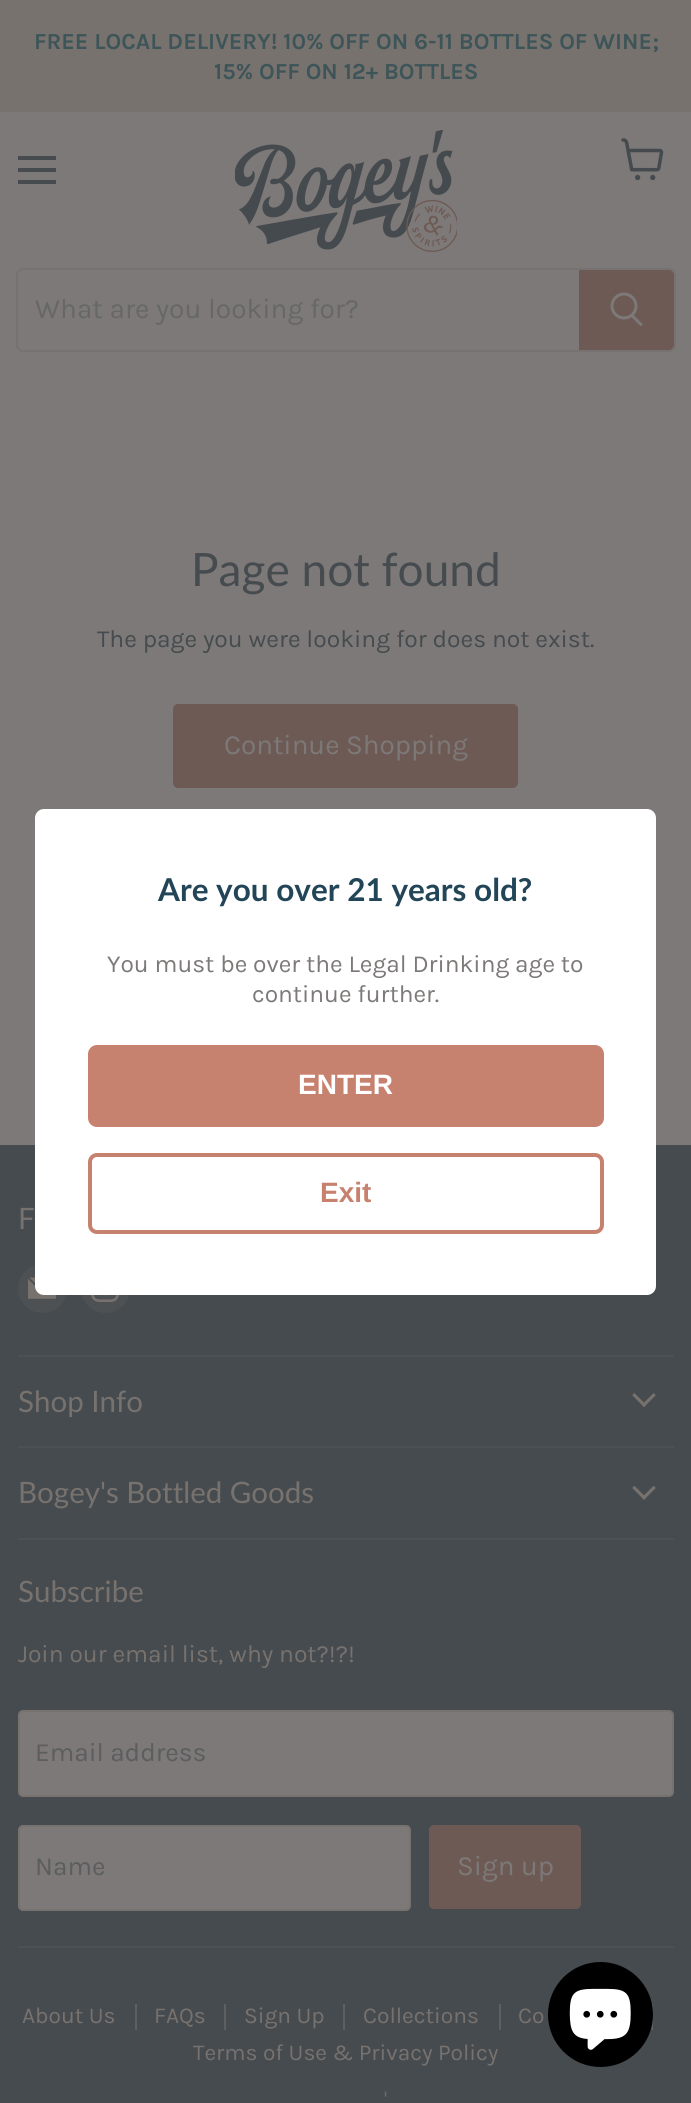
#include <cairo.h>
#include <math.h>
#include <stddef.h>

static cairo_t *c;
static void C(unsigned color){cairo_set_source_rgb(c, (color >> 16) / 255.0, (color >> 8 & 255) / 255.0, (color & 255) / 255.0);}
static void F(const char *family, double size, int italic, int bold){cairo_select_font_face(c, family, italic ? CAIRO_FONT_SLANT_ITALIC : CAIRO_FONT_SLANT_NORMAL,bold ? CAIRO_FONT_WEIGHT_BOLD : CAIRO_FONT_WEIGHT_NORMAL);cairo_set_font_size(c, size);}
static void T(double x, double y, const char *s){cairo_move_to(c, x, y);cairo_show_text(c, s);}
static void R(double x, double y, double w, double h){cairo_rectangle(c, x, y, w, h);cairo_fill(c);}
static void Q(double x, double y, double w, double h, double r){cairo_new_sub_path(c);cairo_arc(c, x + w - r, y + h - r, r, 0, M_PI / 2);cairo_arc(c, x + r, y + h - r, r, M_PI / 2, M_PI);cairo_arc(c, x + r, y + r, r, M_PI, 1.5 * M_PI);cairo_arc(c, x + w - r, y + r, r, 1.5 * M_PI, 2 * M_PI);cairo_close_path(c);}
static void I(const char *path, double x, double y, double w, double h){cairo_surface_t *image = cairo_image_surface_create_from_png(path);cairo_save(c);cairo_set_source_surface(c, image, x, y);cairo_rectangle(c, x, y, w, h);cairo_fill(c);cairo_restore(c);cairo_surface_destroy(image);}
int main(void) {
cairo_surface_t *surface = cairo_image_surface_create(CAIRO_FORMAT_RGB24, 691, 2103);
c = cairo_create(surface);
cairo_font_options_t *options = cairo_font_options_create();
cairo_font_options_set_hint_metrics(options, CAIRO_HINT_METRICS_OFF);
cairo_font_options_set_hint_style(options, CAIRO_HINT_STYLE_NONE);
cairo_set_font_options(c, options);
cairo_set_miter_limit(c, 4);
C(0x7c7978);
cairo_paint(c);
C(0x78726f);
R(0,0,691,112);
F("Karla",23,0,1);
C(0x3d5558);
T(34,49,"FREE LOCAL DELIVERY! 10% OFF ON 6-11 BOTTLES OF WINE;");
T(214,79,"15% OFF ON 12+ BOTTLES");
C(0x454b4e);
R(18,156,38,4);
R(18,168,38,4);
R(18,180,38,4);
I("1.png",621,138,43,42);
I("2.png",235,130,222,122);
Q(17,269,658,82,6);
cairo_set_source_rgba(c,0.361,0.349,0.345,0.2);
cairo_stroke(c);
F("Karla",28,0,0);
C(0x666767);
T(35,318,"What are you looking for?");
C(0x6e5a54);
cairo_new_path(c);
cairo_move_to(c,580,271);
cairo_line_to(c,669,271);
cairo_curve_to(c,671,271,673,273,673,275);
cairo_line_to(c,673,345);
cairo_curve_to(c,673,347,671,349,669,349);
cairo_line_to(c,580,349);
cairo_close_path(c);
cairo_fill_preserve(c);
cairo_stroke(c);
cairo_new_path(c);
cairo_move_to(c,641,324.5);
cairo_line_to(c,632.5,316);
C(0x7c7978);
cairo_set_line_width(c,3);
cairo_set_line_cap(c,CAIRO_LINE_CAP_ROUND);
cairo_stroke(c);
cairo_arc(c,624,306,12,0,2 * M_PI);
cairo_set_line_cap(c,CAIRO_LINE_CAP_BUTT);
cairo_stroke(c);
F("Lato",46,0,0);
C(0x454b4e);
T(191,586,"Page not found");
F("Karla",24.6,0,0);
T(97,647,"The page you were looking for does not exist.");
C(0x6e5a54);
Q(174,705,343,82,4);
cairo_fill_preserve(c);
cairo_set_line_width(c,2);
cairo_stroke(c);
F("Karla",27.75,0,0);
C(0x7c7978);
T(224,754,"Continue Shopping");
C(0x454b4e);
R(0,1145,691,958);
C(0x4d5153);
cairo_new_path(c);
cairo_arc(c,42.5,1288.5,24.5,0,2 * M_PI);
cairo_fill(c);
I("3.png",28,1277,28,22);
cairo_arc(c,105.5,1288.5,24.5,0,2 * M_PI);
cairo_fill(c);
C(0xffffff);
Q(35,809,621,486,9);
cairo_fill(c);
F("Lato",31.5,0,1);
C(0x224558);
T(158,901,"Are you over 21 years old?");
F("Karla",24.5,0,0);
C(0x7c7978);
T(107,972,"You must be over the Legal Drinking age to");
T(252,1002,"continue further.");
C(0xc7816f);
Q(90,1047,512,78,7);
cairo_fill_preserve(c);
cairo_set_line_width(c,4);
cairo_stroke(c);
F("Liberation Sans",28,0,1);
C(0xffffff);
T(298,1094,"ENTER");
Q(90,1155,512,77,7);
C(0xc7816f);
cairo_stroke(c);
T(320,1202,"Exit");
C(0x4d5153);
R(18,1355,656,2);
F("Lato",29.5,0,0);
C(0x78726f);
T(18,1229,"F");
I("4.png",91,1295,28,7);
C(0x4d5153);
R(18,1446,656,2);
C(0x78726f);
T(18,1412,"Shop Info");
I("5.png",632,1393,24,14);
C(0x4d5153);
R(18,1538,656,2);
C(0x78726f);
T(18,1503,"Bogey's Bottled Goods");
I("6.png",632,1486,24,14);
C(0x4d5153);
R(18,1946,656,2);
C(0x78726f);
T(18,1602,"Subscribe");
F("Karla",24.6,0,0);
T(18,1662,"Join our email list, why not?!?!");
C(0x7c7978);
Q(19,1711,654,85,4);
cairo_fill_preserve(c);
C(0x78726f);
cairo_set_line_width(c,2);
cairo_stroke(c);
F("Karla",26.25,0,0);
C(0x5b5d5f);
T(35,1761,"Email address");
C(0x7c7978);
Q(19,1826,391,84,4);
cairo_fill_preserve(c);
C(0x78726f);
cairo_stroke(c);
C(0x5b5d5f);
T(35,1875,"Name");
C(0x6e5a54);
Q(430,1826,150,82,4);
cairo_fill_preserve(c);
cairo_stroke(c);
F("Karla",27.75,0,0);
C(0x7c7978);
T(457,1875,"Sign up");
C(0x5f5f5f);
R(135,2004,2,26);
F("Karla",22.75,0,0);
C(0x78726f);
T(22,2023,"About Us");
C(0x5f5f5f);
R(224,2004,2,26);
C(0x78726f);
T(154,2023,"FAQs");
C(0x5f5f5f);
R(343,2004,2,26);
C(0x78726f);
T(244,2023,"Sign Up");
C(0x5f5f5f);
R(499,2004,2,26);
C(0x78726f);
T(363,2023,"Collections");
C(0x5f5f5f);
R(651,2004,2,26);
C(0x78726f);
T(518,2023,"Co");
T(193,2060,"Terms of Use & Privacy Policy");
C(0x6e6a69);
T(384,2107,"'");
C(0x000000);
cairo_new_path(c);
cairo_arc(c,600.5,2014.5,52.5,0,2 * M_PI);
cairo_fill(c);
I("7.png",569,1988,62,62);
cairo_surface_write_to_png(surface, "o.png");
cairo_font_options_destroy(options);
cairo_destroy(c);
cairo_surface_destroy(surface);
return 0;
}
